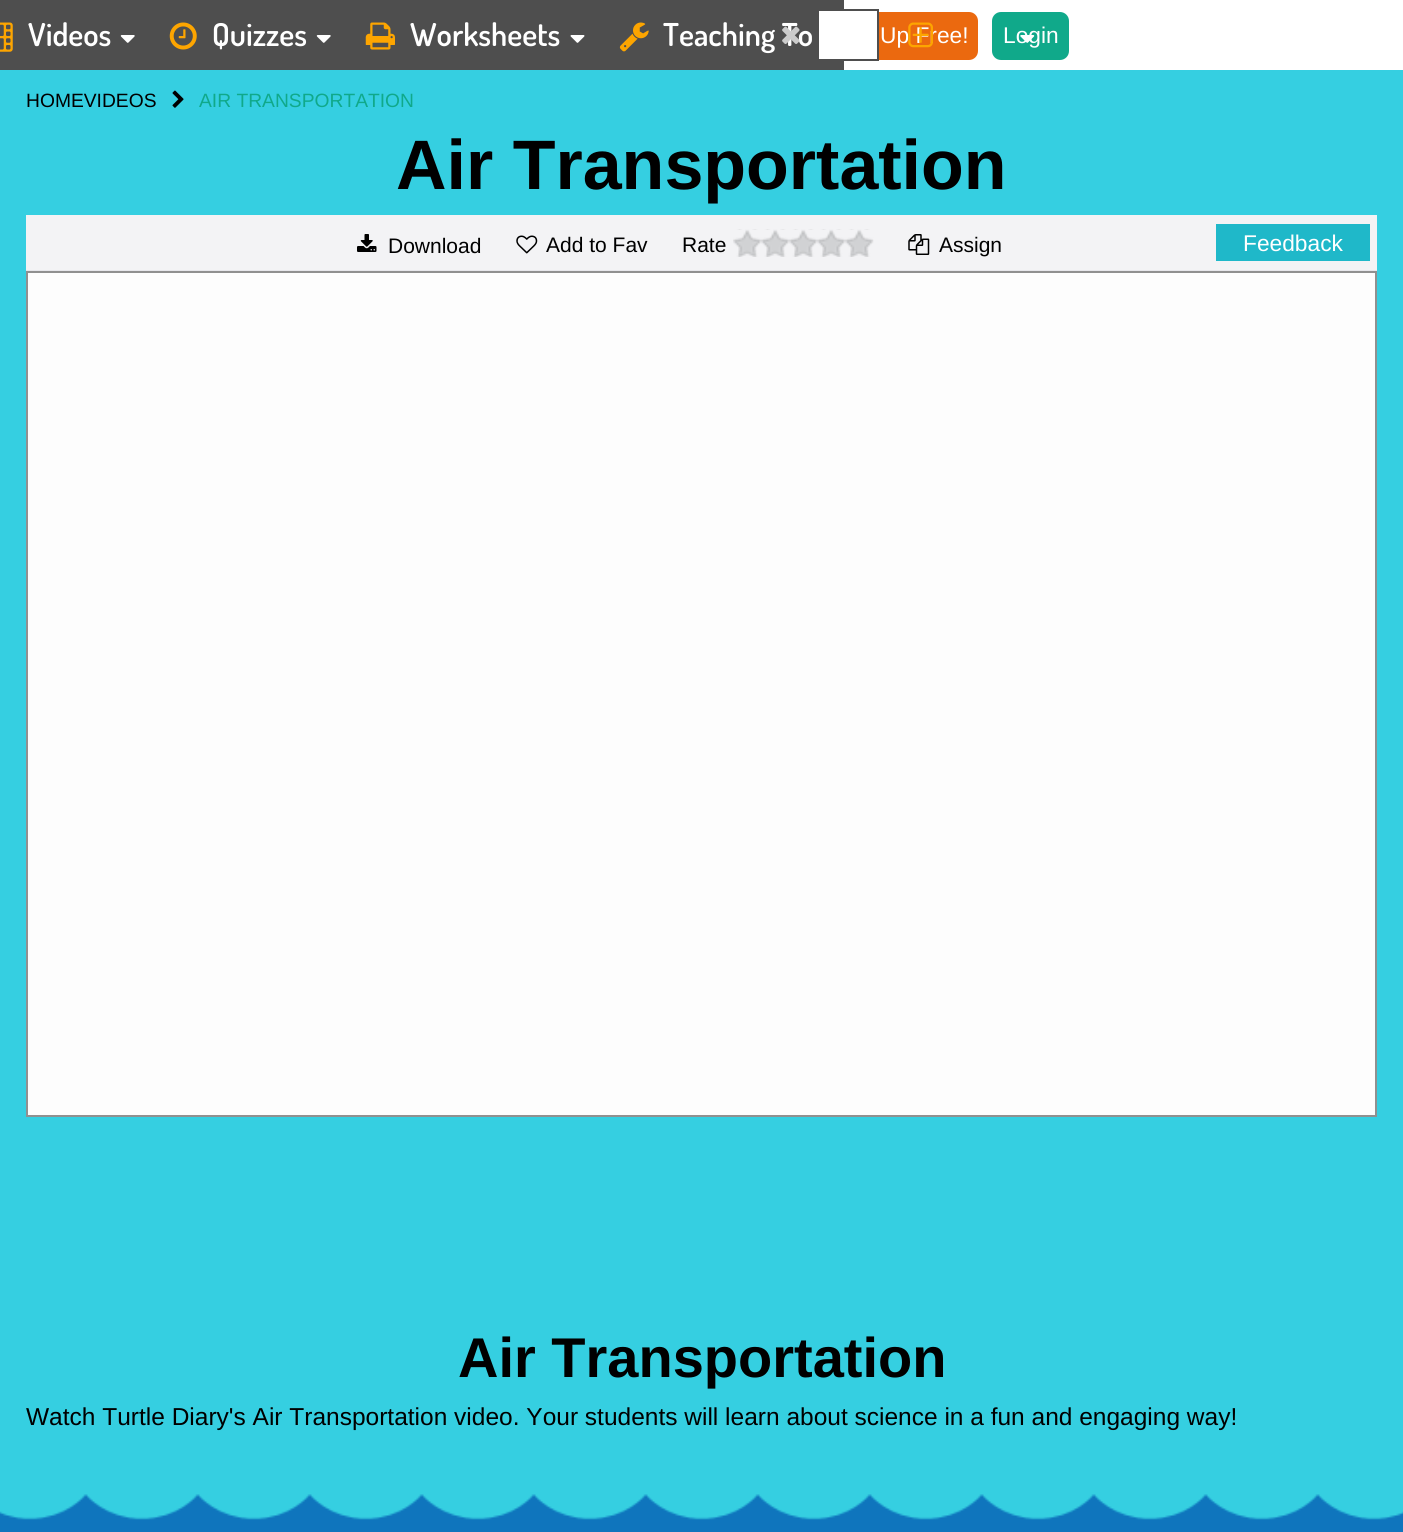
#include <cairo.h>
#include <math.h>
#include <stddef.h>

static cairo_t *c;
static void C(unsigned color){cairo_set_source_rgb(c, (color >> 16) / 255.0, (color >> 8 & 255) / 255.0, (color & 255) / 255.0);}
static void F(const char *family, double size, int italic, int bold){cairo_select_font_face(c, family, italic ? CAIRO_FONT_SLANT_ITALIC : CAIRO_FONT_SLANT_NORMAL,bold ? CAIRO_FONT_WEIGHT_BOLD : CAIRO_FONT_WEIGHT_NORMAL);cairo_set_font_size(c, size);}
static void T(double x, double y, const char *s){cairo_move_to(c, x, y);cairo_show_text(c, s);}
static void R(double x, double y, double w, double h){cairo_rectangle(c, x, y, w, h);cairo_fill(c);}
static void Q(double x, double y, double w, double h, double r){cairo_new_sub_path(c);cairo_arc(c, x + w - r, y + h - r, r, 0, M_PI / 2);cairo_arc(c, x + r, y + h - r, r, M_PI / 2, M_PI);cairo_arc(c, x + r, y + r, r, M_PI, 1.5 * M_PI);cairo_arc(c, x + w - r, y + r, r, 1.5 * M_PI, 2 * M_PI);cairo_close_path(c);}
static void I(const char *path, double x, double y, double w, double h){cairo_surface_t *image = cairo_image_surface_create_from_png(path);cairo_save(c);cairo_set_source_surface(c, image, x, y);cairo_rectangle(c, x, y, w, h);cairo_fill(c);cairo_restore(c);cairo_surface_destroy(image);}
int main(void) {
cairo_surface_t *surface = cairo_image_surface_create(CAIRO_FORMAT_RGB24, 1403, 1532);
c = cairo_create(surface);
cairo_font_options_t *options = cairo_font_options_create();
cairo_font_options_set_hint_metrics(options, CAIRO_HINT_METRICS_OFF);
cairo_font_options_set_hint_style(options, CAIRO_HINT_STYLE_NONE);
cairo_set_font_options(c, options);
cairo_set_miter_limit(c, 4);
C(0xffffff);
cairo_paint(c);
C(0x4e4e4e);
R(0,0,844,70);
I("1.png",0,22,13,30);
F("Dosis SemiBold",31.5,0,0);
C(0xffffff);
T(28,46,"Videos");
I("2.png",120,35,15,8);
I("3.png",169,22,28,28);
T(212,46,"Quizzes");
I("2.png",316,35,15,8);
I("4.png",365,22,30,28);
T(410,46,"Worksheets");
I("5.png",570,35,15,8);
I("6.png",619,22,30,30);
T(663,46,"Teaching To");
C(0xeb690f);
Q(817,12,161,48,9);
cairo_fill(c);
F("Liberation Sans",22.75,0,0);
C(0xffffff);
T(880,43,"Up Free!");
I("7.png",908,22,25,26);
C(0x10a98a);
Q(992,12,77,48,9);
cairo_fill(c);
C(0xffffff);
T(1003,43,"Login");
I("8.png",1020,35,15,8);
I("9.png",782,26,18,18);
cairo_rectangle(c,818,10,60,50);
cairo_fill_preserve(c);
C(0x4e4e4e);
cairo_stroke(c);
C(0x35cfe1);
R(0,70,1403,1450);
F("Liberation Sans",19.25,0,0);
C(0x000000);
T(26,107,"HOMEVIDEOS");
I("10.png",172,90,12,18);
C(0x10a98a);
T(199,107,"AIR TRANSPORTATION");
F("Liberation Sans",70,0,1);
C(0x000000);
T(396,189,"Air Transportation");
C(0xf3f3f5);
R(26,215,1351,55);
I("11.png",357,234,20,18);
F("Liberation Sans",21,0,0);
C(0x000000);
T(388,253,"Download");
I("12.png",516,235,22,19);
T(546,252,"Add to Fav");
T(682,252,"Rate");
I("13.png",733,229,141,28);
I("14.png",908,234,22,21);
T(939,252,"Assign");
C(0x1fb8c9);
R(1216,224,154,37);
F("Liberation Sans",22.75,0,0);
C(0xffffff);
T(1243,251,"Feedback");
C(0xe7e7eb);
R(26,270,1351,1);
C(0xfdfdfd);
cairo_rectangle(c,27,272,1349,844);
cairo_fill_preserve(c);
C(0x909090);
cairo_stroke(c);
F("Liberation Sans",56,0,1);
C(0x000000);
T(458,1377,"Air Transportation");
F("Liberation Sans",24.5,0,0);
T(26,1425,"Watch Turtle Diary's Air Transportation video. Your students will learn about science in a fun and engaging way!");
I("15.png",0,1494,1403,38);
cairo_surface_write_to_png(surface, "o.png");
cairo_font_options_destroy(options);
cairo_destroy(c);
cairo_surface_destroy(surface);
return 0;
}
